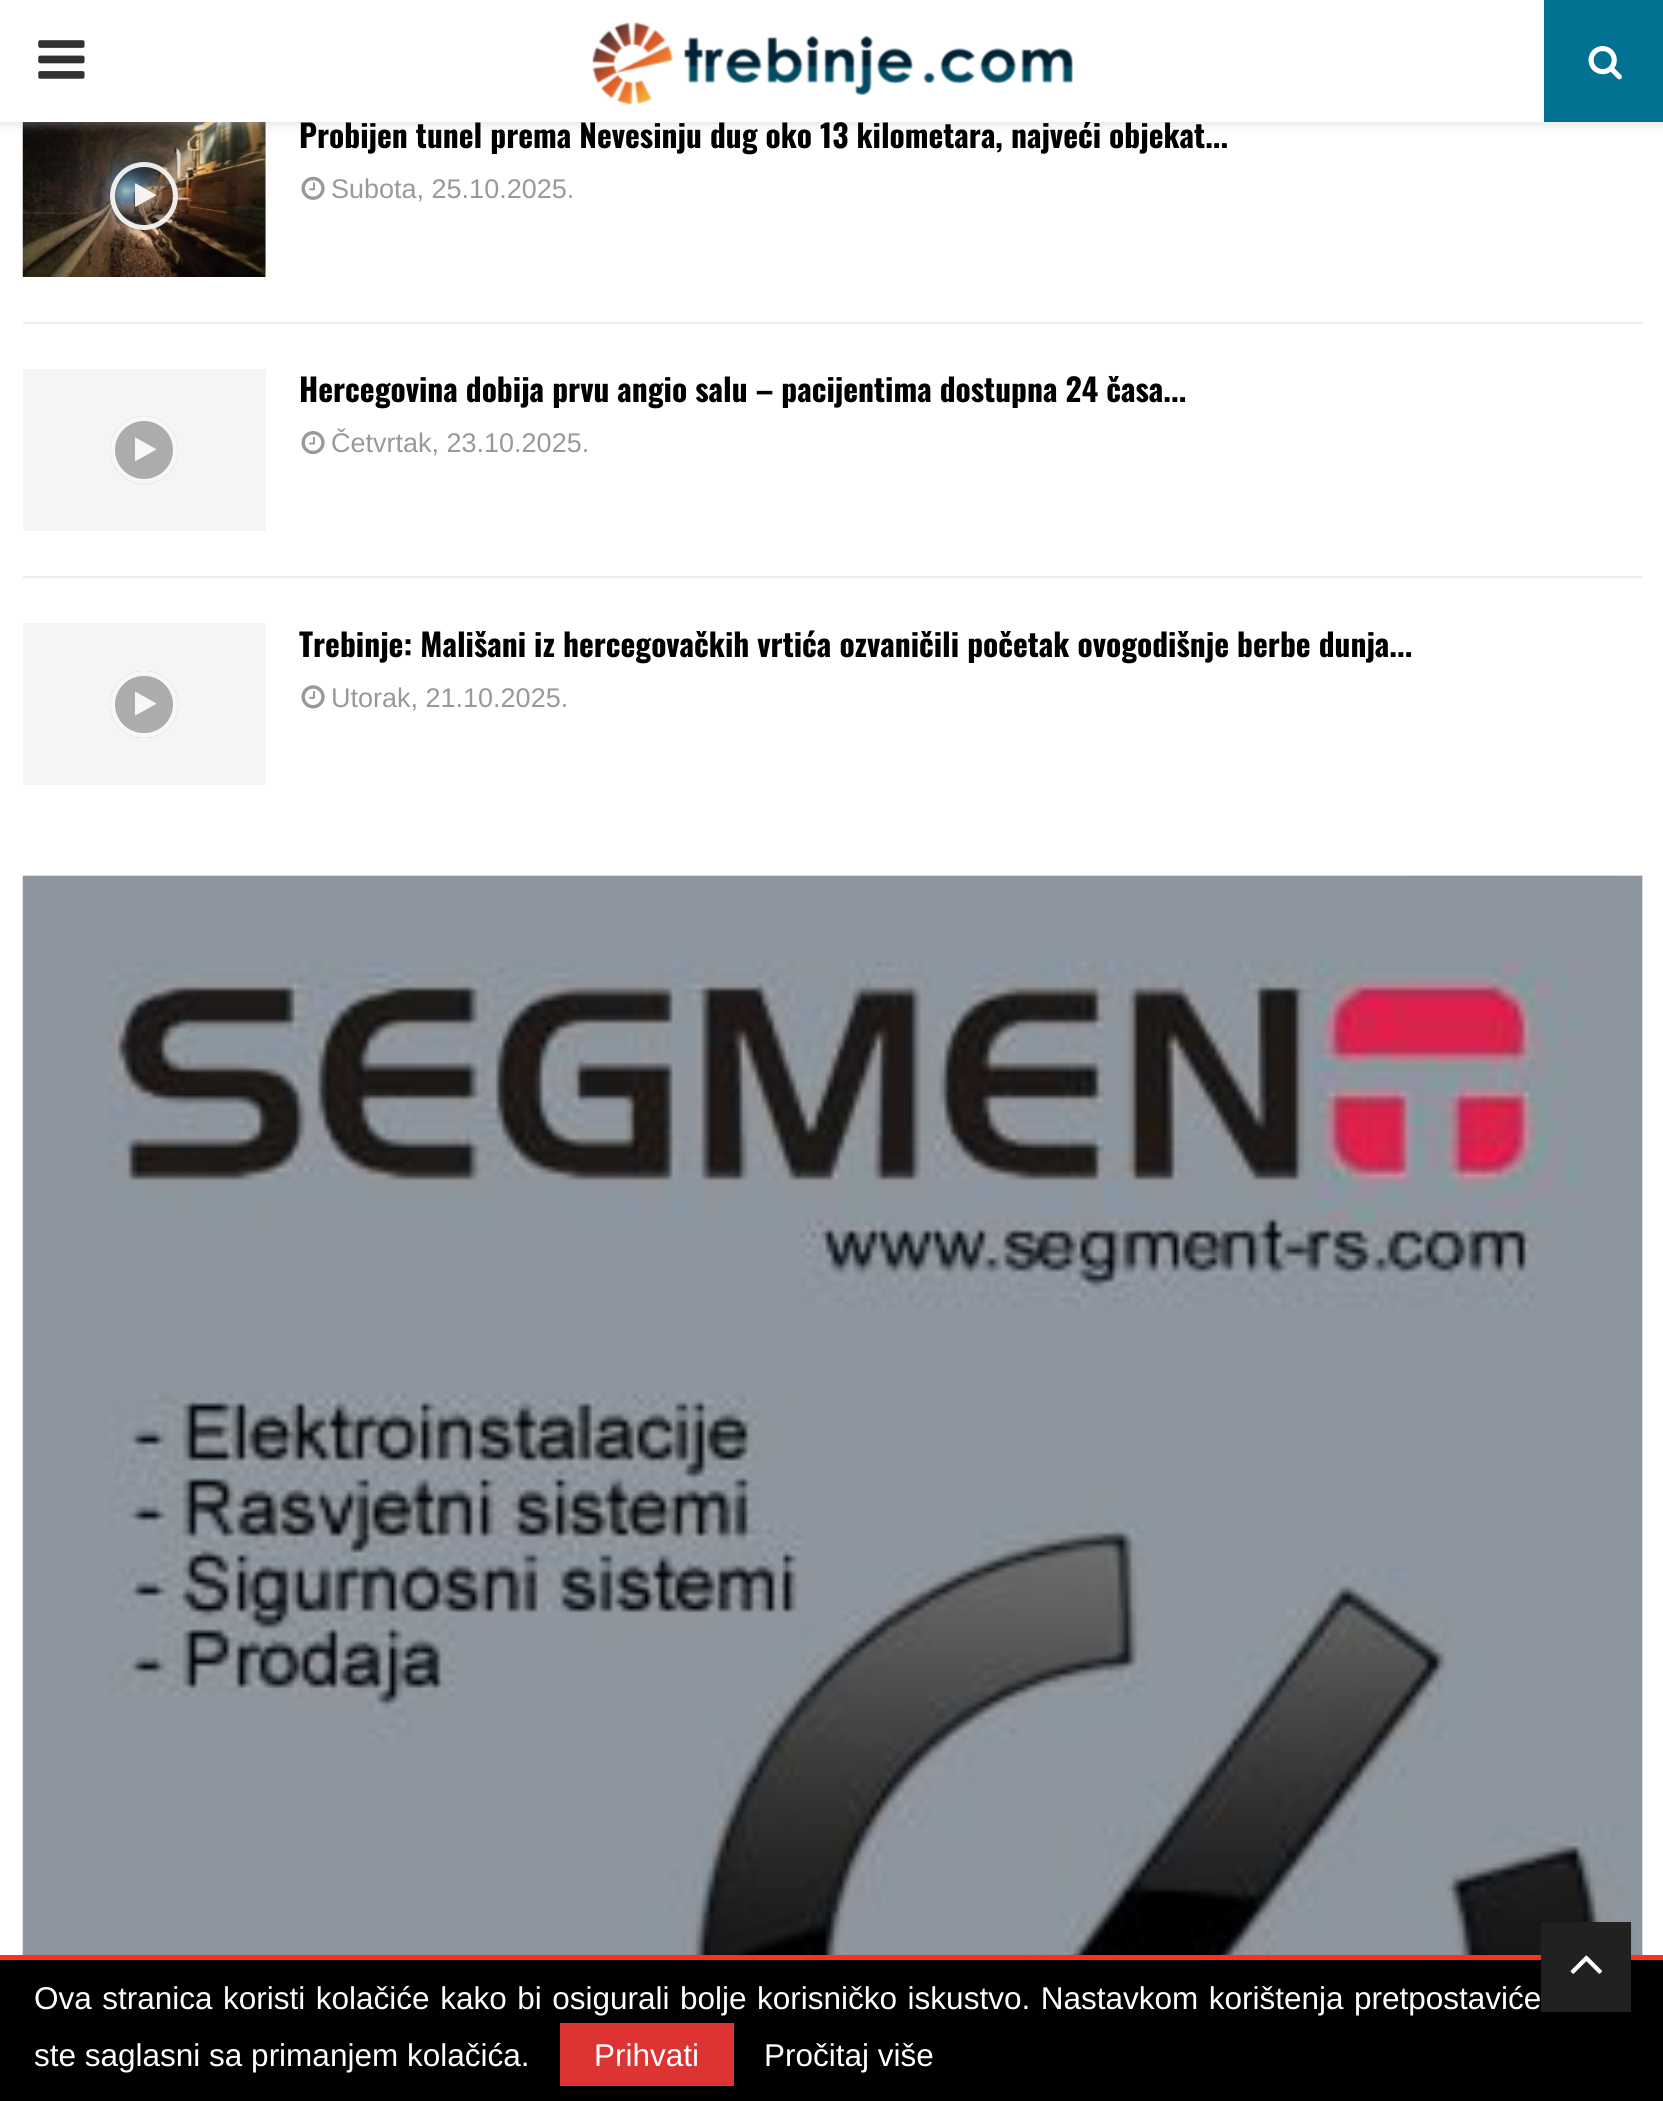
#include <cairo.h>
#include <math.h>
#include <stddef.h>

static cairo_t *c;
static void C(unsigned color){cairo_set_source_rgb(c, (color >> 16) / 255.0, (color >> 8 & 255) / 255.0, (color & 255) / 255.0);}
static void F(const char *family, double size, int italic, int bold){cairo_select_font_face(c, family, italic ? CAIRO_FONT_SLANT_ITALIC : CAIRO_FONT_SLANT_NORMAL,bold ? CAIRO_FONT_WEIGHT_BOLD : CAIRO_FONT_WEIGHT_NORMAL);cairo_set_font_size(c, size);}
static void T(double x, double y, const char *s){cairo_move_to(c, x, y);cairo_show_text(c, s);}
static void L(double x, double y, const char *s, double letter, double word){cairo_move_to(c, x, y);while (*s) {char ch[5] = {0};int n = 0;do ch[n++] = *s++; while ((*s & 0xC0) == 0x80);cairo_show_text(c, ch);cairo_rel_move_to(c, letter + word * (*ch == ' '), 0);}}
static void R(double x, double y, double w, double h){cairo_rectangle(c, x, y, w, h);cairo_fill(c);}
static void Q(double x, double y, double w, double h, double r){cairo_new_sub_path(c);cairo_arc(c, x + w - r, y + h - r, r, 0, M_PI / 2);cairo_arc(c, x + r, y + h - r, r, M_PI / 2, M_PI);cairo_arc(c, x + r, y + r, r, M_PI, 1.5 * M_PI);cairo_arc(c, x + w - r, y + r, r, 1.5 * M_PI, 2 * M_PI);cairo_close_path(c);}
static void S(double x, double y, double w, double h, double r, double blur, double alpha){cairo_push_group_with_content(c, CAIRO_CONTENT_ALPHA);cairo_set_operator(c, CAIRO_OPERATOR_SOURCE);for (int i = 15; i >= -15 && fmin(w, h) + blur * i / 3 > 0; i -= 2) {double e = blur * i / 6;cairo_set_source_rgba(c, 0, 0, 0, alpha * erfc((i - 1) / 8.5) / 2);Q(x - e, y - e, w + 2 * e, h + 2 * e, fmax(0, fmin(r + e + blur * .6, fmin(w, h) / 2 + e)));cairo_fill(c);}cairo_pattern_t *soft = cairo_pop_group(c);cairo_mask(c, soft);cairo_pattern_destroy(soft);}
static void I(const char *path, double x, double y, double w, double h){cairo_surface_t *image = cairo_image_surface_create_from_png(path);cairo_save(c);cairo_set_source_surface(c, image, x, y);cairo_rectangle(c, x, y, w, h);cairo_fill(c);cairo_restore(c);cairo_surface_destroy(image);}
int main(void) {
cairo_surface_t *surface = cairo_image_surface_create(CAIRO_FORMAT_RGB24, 1663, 2101);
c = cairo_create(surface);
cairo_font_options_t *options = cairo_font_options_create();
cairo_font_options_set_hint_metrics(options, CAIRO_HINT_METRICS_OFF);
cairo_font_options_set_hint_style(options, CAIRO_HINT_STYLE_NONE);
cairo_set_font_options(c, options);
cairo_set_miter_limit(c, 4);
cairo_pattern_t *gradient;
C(0xffffff);
cairo_paint(c);
C(0xf5f5f5);
R(265,122,1,155);
I("4.png",22,122,244,155);
C(0xbebebe);
S(0,2,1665,122,0,5.5,.46);
F("Oswald",31.5,0,1);
C(0x000000);
T(299,148,"Probijen tunel prema Nevesinju dug oko 13 kilometara, najveći objekat...");
C(0xffffff);
R(0,0,1544,122);
I("1.png",38,40,47,39);
I("2.png",592,22,481,83);
C(0x027293);
R(1544,0,119,122);
I("3.png",1588,46,34,34);
C(0xeeeeee);
R(23,322,1620,2);
cairo_set_source_rgba(c,0,0,0,0.3);
cairo_arc(c,144,196,34,0,2 * M_PI);
cairo_fill(c);
cairo_arc(c,144,196,31.5,0,2 * M_PI);
cairo_set_source_rgba(c,1,1,1,0.9);
cairo_set_line_width(c,5);
cairo_stroke(c);
I("5.png",135,183,22,24);
I("6.png",301,176,24,24);
F("Liberation Sans",27,0,0);
C(0x999999);
T(331,198,"Subota, 25.10.2025.");
C(0xeeeeee);
R(23,576,1620,2);
C(0xf5f5f5);
R(23,369,243,162);
C(0xacacac);
cairo_new_path(c);
cairo_arc(c,144,450,34,0,2 * M_PI);
cairo_fill(c);
cairo_arc(c,144,450,31.5,0,2 * M_PI);
cairo_set_source_rgba(c,1,1,1,0.9);
cairo_stroke(c);
I("7.png",135,437,22,24);
F("Oswald",31.5,0,1);
C(0x000000);
T(299,402,"Hercegovina dobija prvu angio salu – pacijentima dostupna 24 časa...");
I("8.png",301,431,24,24);
F("Liberation Sans",27,0,0);
C(0x999999);
T(331,452,"Četvrtak, 23.10.2025.");
C(0xf5f5f5);
R(23,623,243,162);
C(0xacacac);
Q(110,671,68,67,33.5);
cairo_fill(c);
Q(112.5,673.5,63,62,31);
cairo_set_source_rgba(c,1,1,1,0.9);
cairo_stroke(c);
I("9.png",135,692,22,24);
F("Oswald",31.5,0,1);
C(0x000000);
T(299,657,"Trebinje: Mališani iz hercegovačkih vrtića ozvaničili početak ovogodišnje berbe dunja...");
I("10.png",301,685,24,24);
F("Liberation Sans",27,0,0);
C(0x999999);
T(331,707,"Utorak, 21.10.2025.");
gradient = cairo_pattern_create_linear(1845,1550,-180,1550);
cairo_pattern_add_color_stop_rgba(gradient,0,0.961,0.961,0.961,1);
cairo_pattern_add_color_stop_rgba(gradient,.15,0.937,0.937,0.937,1);
cairo_pattern_add_color_stop_rgba(gradient,.4,0.961,0.961,0.961,1);
cairo_pattern_add_color_stop_rgba(gradient,1,0.961,0.961,0.961,1);
cairo_set_source(c,gradient);
cairo_pattern_destroy(gradient);
R(23,875,1620,1080);
I("11.png",22,875,1621,1080);
C(0x000000);
R(0,1960,1663,141);
C(0xfc321b);
R(0,1955,1663,5);
F("Liberation Sans",31.5,0,0);
C(0xffffff);
L(34,2009,"Ova stranica koristi kolačiće kako bi osigurali bolje korisničko iskustvo. Nastavkom korištenja pretpostaviće",0,1.75);
T(34,2066,"ste saglasni sa primanjem kolačića.");
C(0xdd3333);
R(560,2023,174,63);
C(0xffffff);
T(594,2066,"Prihvati");
T(764,2066,"Pročitaj više");
C(0x000000);
S(1541,1924,90,90,0,2,.1);
C(0x212121);
R(1541,1922,90,90);
I("12.png",1570,1955,32,19);
cairo_surface_write_to_png(surface, "o.png");
cairo_font_options_destroy(options);
cairo_destroy(c);
cairo_surface_destroy(surface);
return 0;
}
